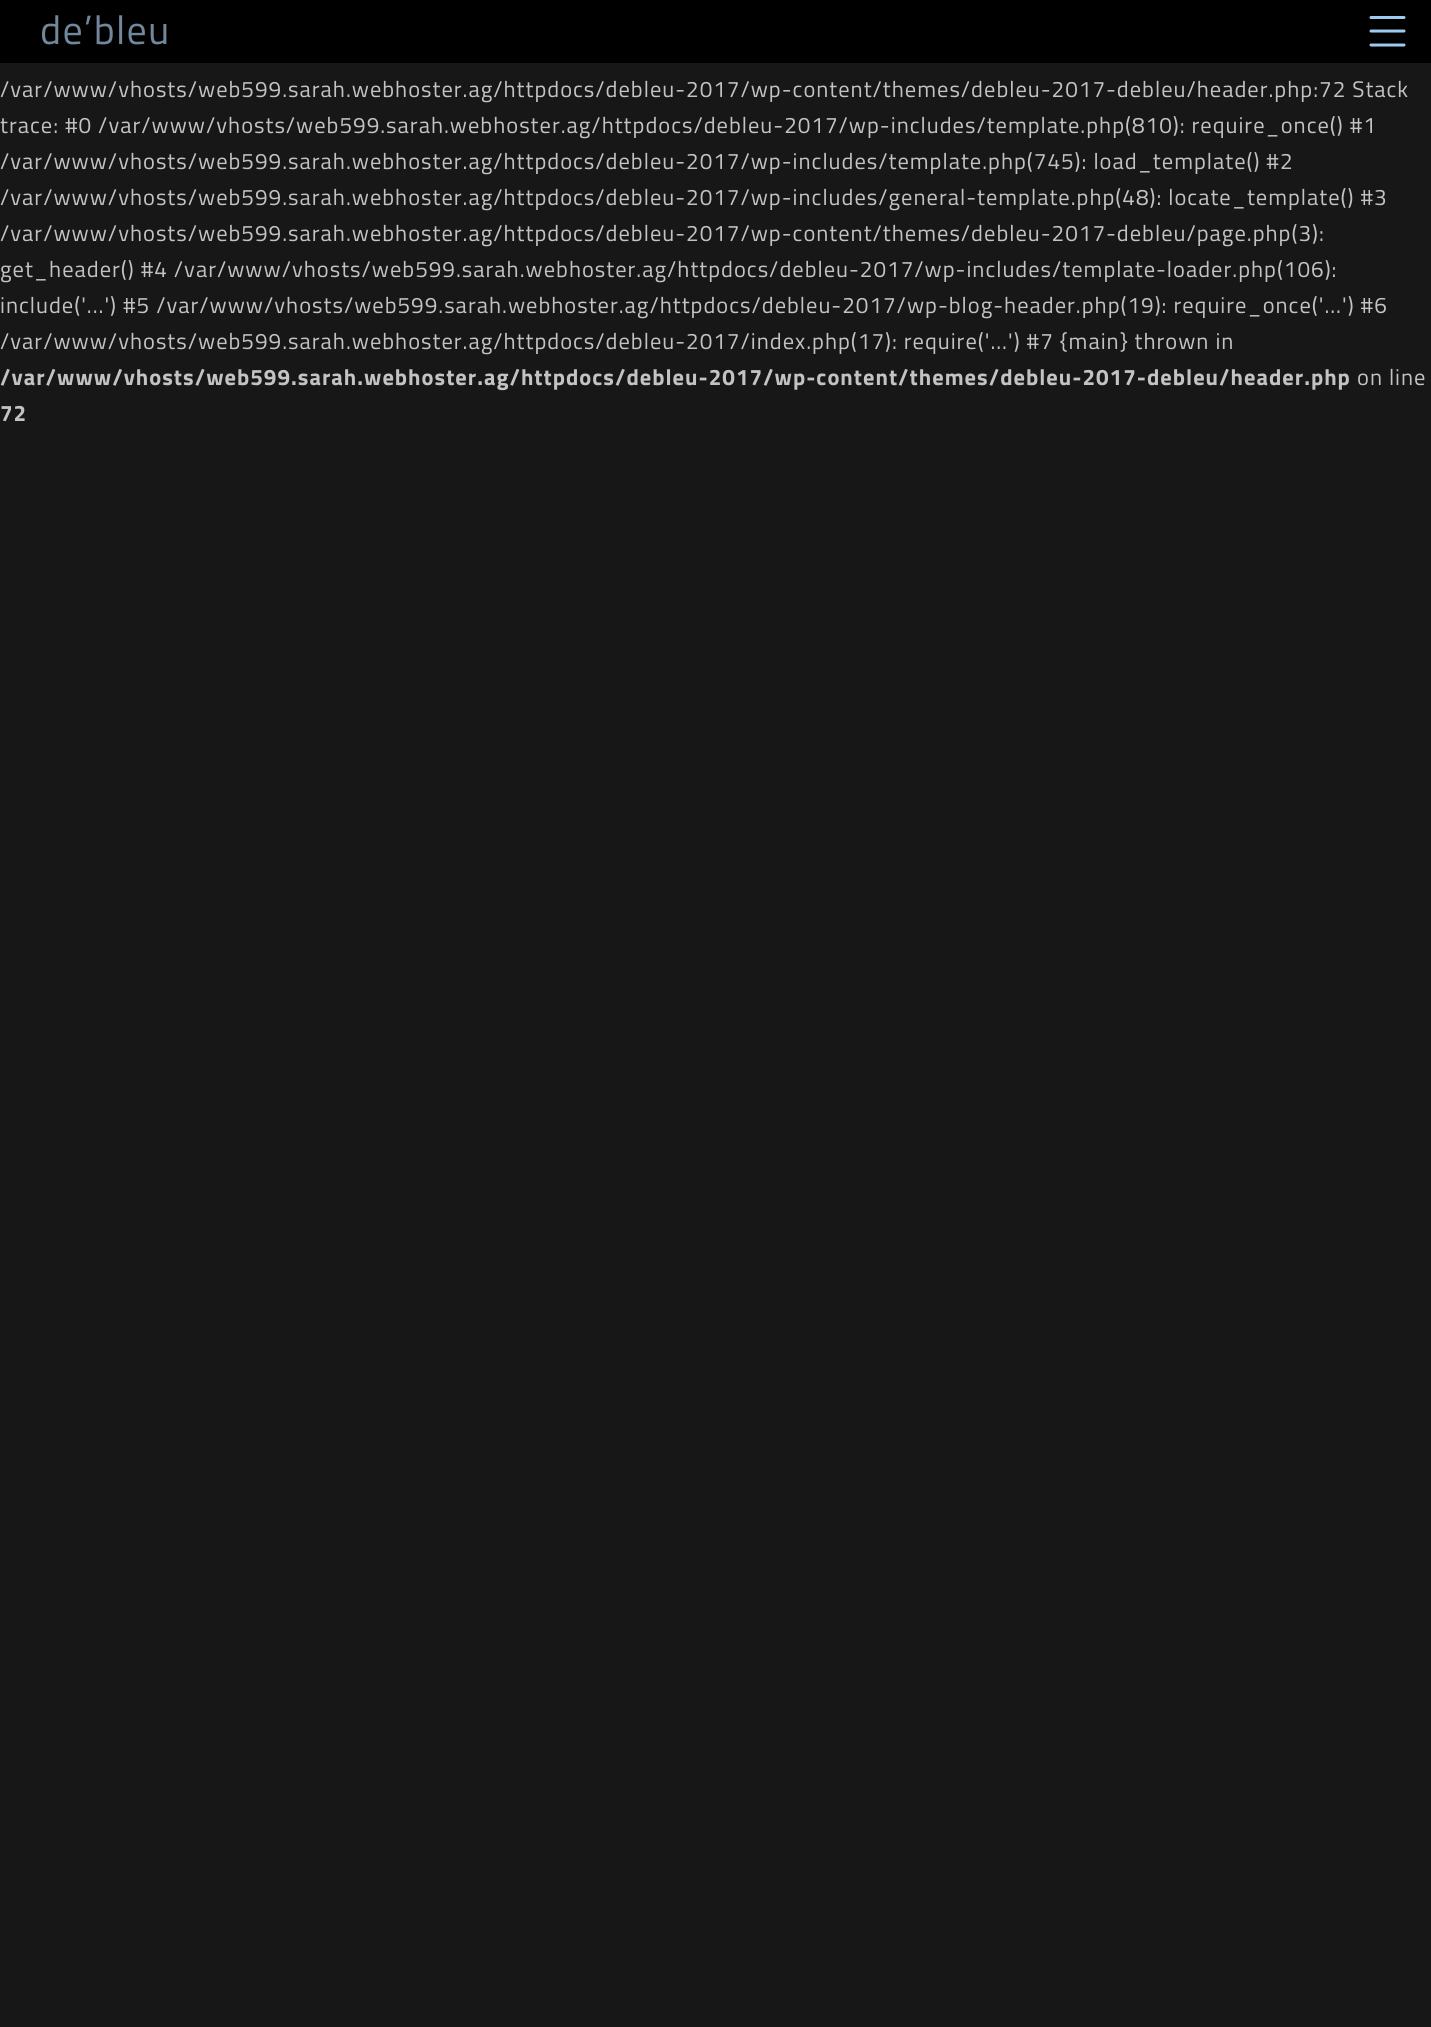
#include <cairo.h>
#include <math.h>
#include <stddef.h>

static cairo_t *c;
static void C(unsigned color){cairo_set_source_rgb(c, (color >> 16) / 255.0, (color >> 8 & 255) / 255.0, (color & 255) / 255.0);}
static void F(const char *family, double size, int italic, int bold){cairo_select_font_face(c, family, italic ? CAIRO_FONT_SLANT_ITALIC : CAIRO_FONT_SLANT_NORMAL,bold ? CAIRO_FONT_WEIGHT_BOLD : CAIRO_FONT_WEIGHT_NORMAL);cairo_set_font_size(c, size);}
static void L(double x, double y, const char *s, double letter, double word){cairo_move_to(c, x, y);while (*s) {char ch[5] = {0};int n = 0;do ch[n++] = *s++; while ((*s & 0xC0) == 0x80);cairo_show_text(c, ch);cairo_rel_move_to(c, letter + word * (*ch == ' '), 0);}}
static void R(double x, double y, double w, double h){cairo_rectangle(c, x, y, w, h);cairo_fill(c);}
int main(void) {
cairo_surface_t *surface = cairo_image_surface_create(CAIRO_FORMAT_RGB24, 1431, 2027);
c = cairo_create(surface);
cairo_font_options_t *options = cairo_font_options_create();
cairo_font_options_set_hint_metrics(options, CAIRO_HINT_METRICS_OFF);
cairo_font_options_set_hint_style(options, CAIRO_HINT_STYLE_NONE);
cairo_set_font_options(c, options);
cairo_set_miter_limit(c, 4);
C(0x171717);
cairo_paint(c);
C(0x000000);
R(0,0,1431,63);
F("Titillium Web",40,0,0);
C(0x72889a);
L(40,44,"de’bleu",1.25,0);
cairo_new_path(c);
cairo_move_to(c,1371,31);
cairo_line_to(c,1404,31);
cairo_move_to(c,1371,17.5);
cairo_line_to(c,1404,17.5);
cairo_move_to(c,1371,45);
cairo_line_to(c,1404,45);
C(0x9ecaef);
cairo_set_line_width(c,3);
cairo_set_line_cap(c,CAIRO_LINE_CAP_ROUND);
cairo_stroke(c);
F("Titillium Web",22.5,0,0);
C(0xc3c3c3);
L(0,97,"/var/www/vhosts/web599.sarah.webhoster.ag/httpdocs/debleu-2017/wp-content/themes/debleu-2017-debleu/header.php:72 Stack",1,0);
L(0,133,"trace: #0 /var/www/vhosts/web599.sarah.webhoster.ag/httpdocs/debleu-2017/wp-includes/template.php(810): require_once() #1",1,0);
L(0,169,"/var/www/vhosts/web599.sarah.webhoster.ag/httpdocs/debleu-2017/wp-includes/template.php(745): load_template() #2",1,0);
L(0,205,"/var/www/vhosts/web599.sarah.webhoster.ag/httpdocs/debleu-2017/wp-includes/general-template.php(48): locate_template() #3",1,0);
L(0,241,"/var/www/vhosts/web599.sarah.webhoster.ag/httpdocs/debleu-2017/wp-content/themes/debleu-2017-debleu/page.php(3):",1,0);
L(0,277,"get_header() #4 /var/www/vhosts/web599.sarah.webhoster.ag/httpdocs/debleu-2017/wp-includes/template-loader.php(106):",1,0);
L(0,313,"include('...') #5 /var/www/vhosts/web599.sarah.webhoster.ag/httpdocs/debleu-2017/wp-blog-header.php(19): require_once('...') #6",1,0);
L(0,349,"/var/www/vhosts/web599.sarah.webhoster.ag/httpdocs/debleu-2017/index.php(17): require('...') #7 {main} thrown in",1,0);
F("Titillium Web",22.5,0,1);
L(0,385,"/var/www/vhosts/web599.sarah.webhoster.ag/httpdocs/debleu-2017/wp-content/themes/debleu-2017-debleu/header.php",1,0);
F("Titillium Web",22.5,0,0);
L(1357,385,"on line",1,0);
F("Titillium Web",22.5,0,1);
L(0,421,"72",1,0);
cairo_surface_write_to_png(surface, "o.png");
cairo_font_options_destroy(options);
cairo_destroy(c);
cairo_surface_destroy(surface);
return 0;
}
